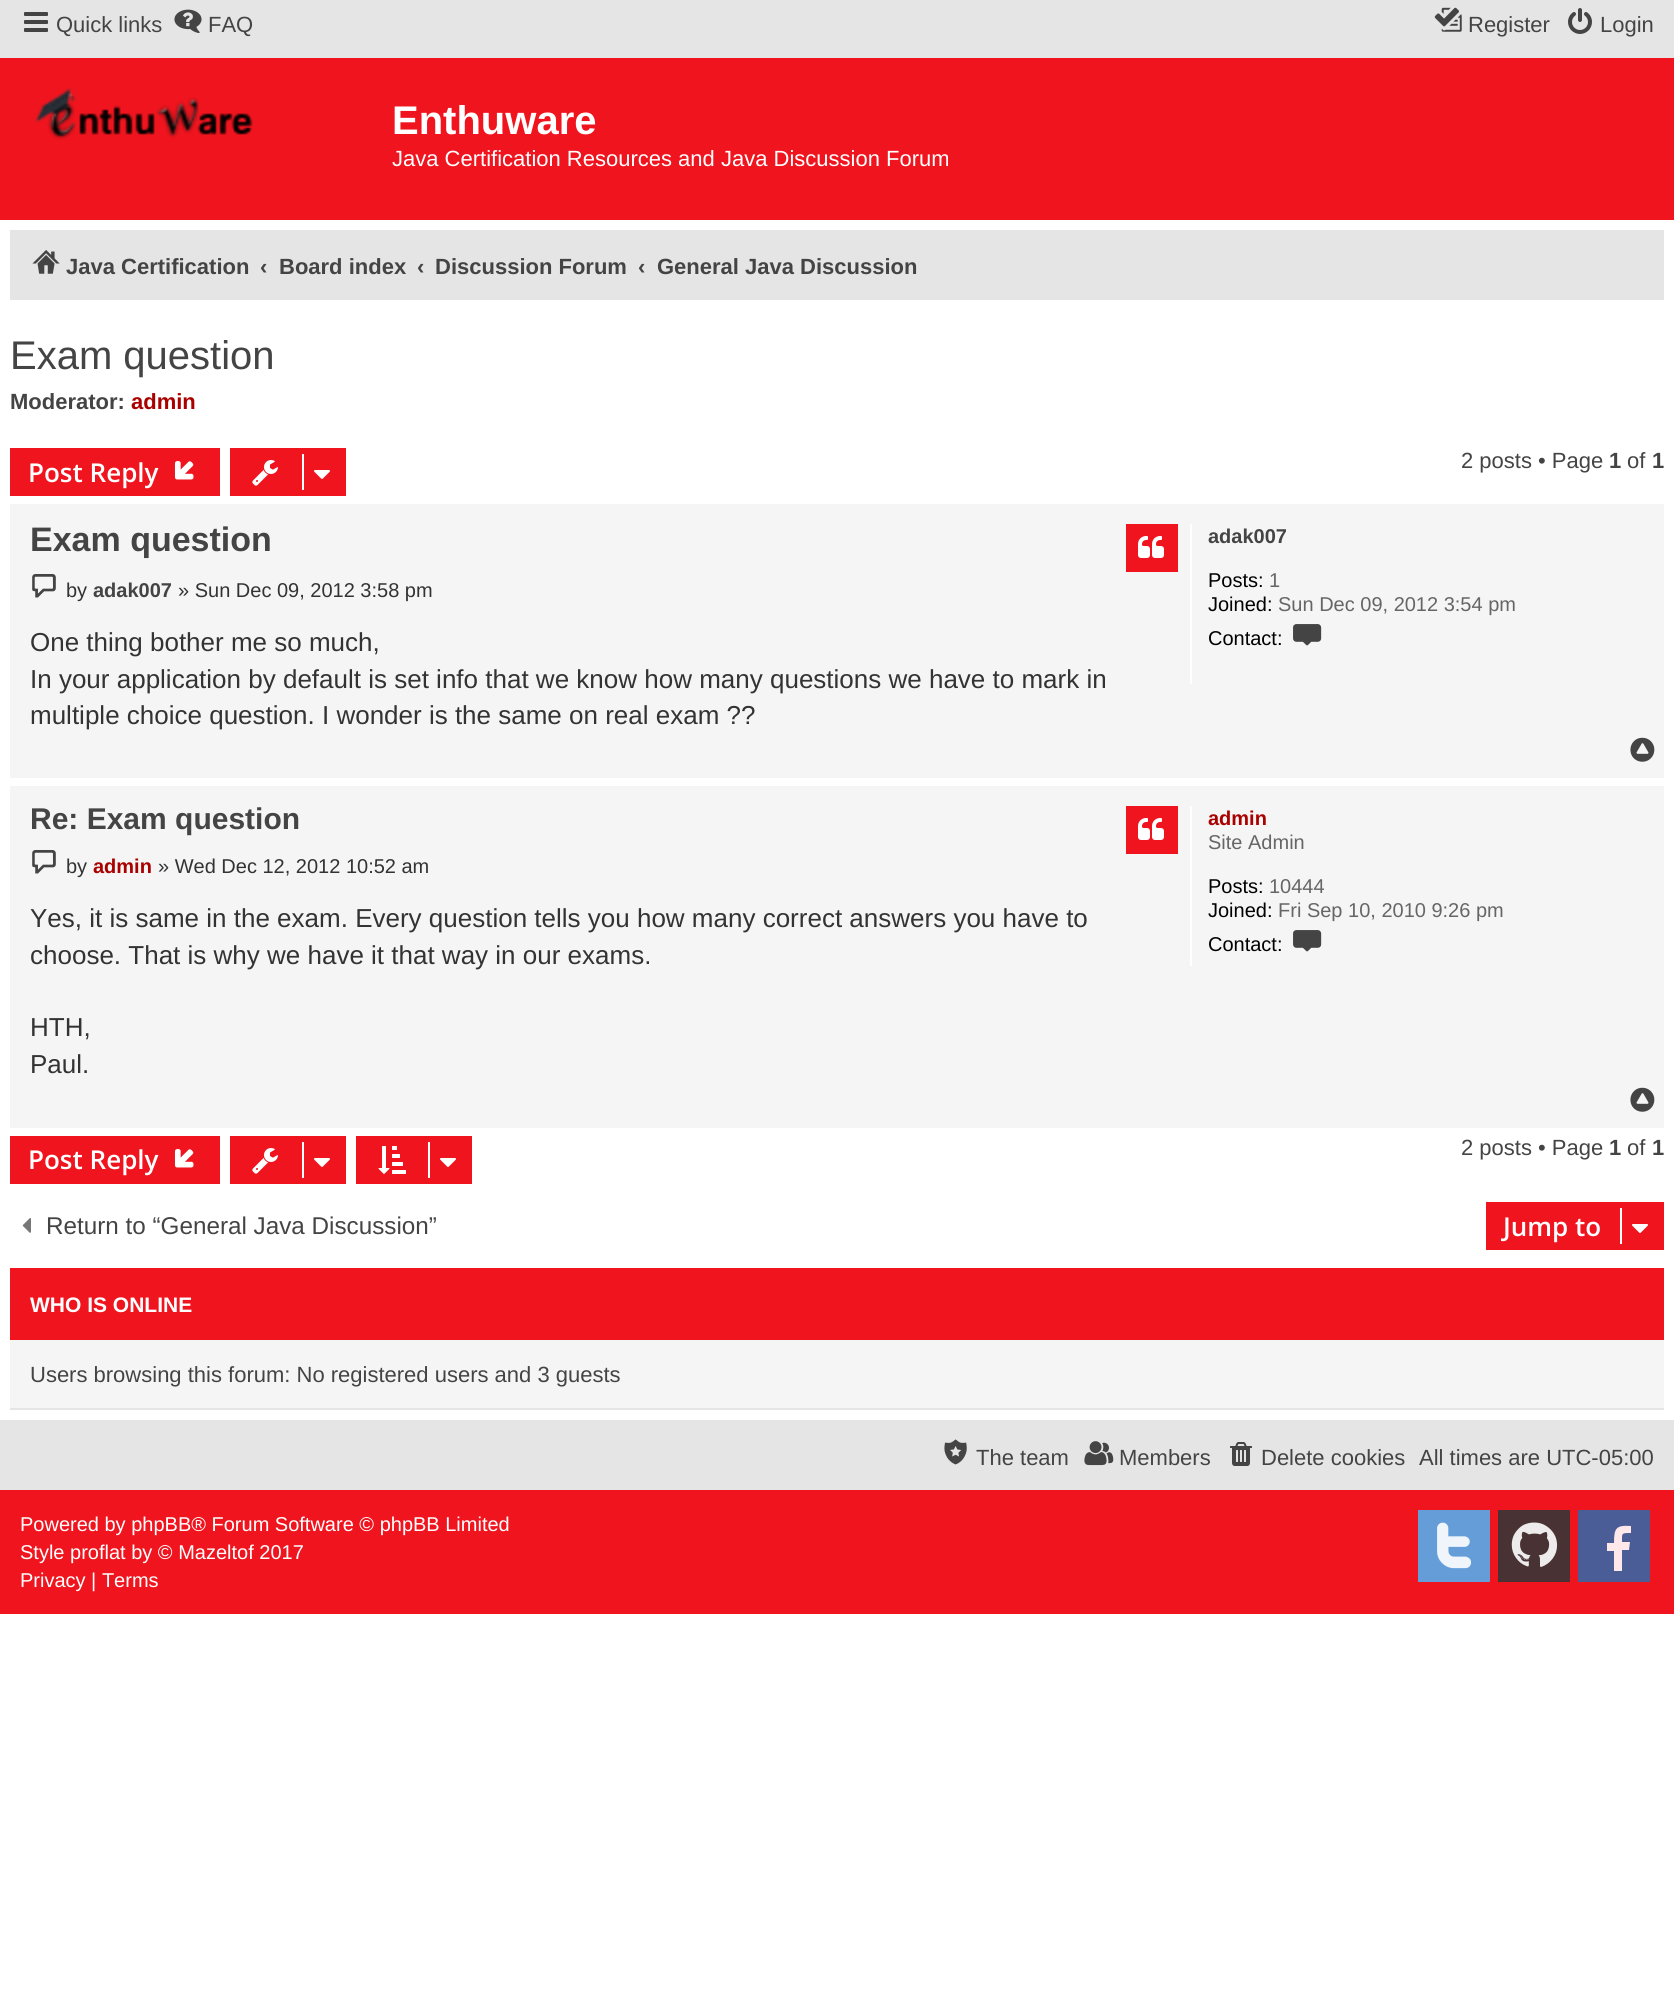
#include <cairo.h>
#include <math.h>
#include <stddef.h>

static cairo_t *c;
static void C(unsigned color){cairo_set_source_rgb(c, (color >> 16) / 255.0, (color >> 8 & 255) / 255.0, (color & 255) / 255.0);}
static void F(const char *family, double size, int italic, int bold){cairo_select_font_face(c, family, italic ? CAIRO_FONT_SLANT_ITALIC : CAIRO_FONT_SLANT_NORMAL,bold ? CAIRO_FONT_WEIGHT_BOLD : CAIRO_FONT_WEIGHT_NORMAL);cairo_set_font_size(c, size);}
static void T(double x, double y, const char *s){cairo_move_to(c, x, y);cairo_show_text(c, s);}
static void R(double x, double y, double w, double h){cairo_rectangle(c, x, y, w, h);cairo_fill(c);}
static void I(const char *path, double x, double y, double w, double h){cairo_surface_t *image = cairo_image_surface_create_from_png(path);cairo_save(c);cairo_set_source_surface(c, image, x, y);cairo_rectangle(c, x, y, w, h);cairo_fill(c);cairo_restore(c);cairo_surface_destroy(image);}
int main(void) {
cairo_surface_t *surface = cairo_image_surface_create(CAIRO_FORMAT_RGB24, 1674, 1991);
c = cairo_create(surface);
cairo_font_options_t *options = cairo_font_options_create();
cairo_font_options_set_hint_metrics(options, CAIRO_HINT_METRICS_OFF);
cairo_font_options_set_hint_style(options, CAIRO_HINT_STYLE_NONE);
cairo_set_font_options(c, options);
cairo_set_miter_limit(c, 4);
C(0xffffff);
cairo_paint(c);
C(0xe5e5e5);
R(0,0,1674,58);
I("1.png",24,12,24,20);
F("Liberation Sans",22,0,0);
C(0x444444);
T(56,32,"Quick links");
I("2.png",174,9,28,24);
T(208,32,"FAQ");
I("3.png",1434,7,28,25);
T(1468,32,"Register");
I("4.png",1568,8,24,26);
T(1600,32,"Login");
C(0xf0141e);
R(0,58,1674,162);
I("5.png",34,88,219,52);
F("Liberation Sans",40,0,1);
C(0xffffff);
T(392,134,"Enthuware");
F("Liberation Sans",22,0,0);
T(392,166,"Java Certification Resources and Java Discussion Forum");
C(0xe5e5e5);
R(10,230,1654,70);
I("6.png",32,250,28,24);
F("Liberation Sans",22,0,1);
C(0x444444);
T(66,274,"Java Certification");
T(260,274,"‹");
T(279,274,"Board index");
T(417,274,"‹");
T(435,274,"Discussion Forum");
T(638,274,"‹");
T(657,274,"General Java Discussion");
F("Liberation Sans",40,0,0);
T(10,369,"Exam question");
F("Liberation Sans",22,0,1);
T(10,409,"Moderator:");
C(0xaa0000);
T(131,409,"admin");
C(0xf0141e);
R(10,448,210,48);
F("Open Sans SemiBold",26,0,0);
C(0xffffff);
T(28,482,"Post Reply");
I("7.png",174,461,20,19);
C(0xf0141e);
R(230,448,116,48);
I("8.png",252,460,26,26);
C(0xffffff);
R(302,454,2,36);
I("9.png",314,470,16,9);
F("Liberation Sans",22,0,0);
C(0x444444);
T(1461,468,"2 posts • Page");
F("Liberation Sans",22,0,1);
T(1609,468,"1");
F("Liberation Sans",22,0,0);
T(1627,468,"of");
F("Liberation Sans",22,0,1);
T(1652,468,"1");
C(0xf5f5f5);
R(10,504,1654,274);
F("Liberation Sans",34,0,1);
C(0x444444);
T(30,551,"Exam question");
C(0xf0141e);
R(1126,524,52,48);
I("10.png",1138,536,26,22);
I("11.png",32,574,24,24);
F("Liberation Sans",20,0,0);
C(0x333333);
T(66,597,"by");
F("Liberation Sans",20,0,1);
C(0x444444);
T(93,597,"adak007");
F("Liberation Sans",20,0,0);
C(0x333333);
T(178,597,"» Sun Dec 09, 2012 3:58 pm");
F("Liberation Sans",26,0,0);
T(30,651,"One thing bother me so much,");
T(30,688,"In your application by default is set info that we know how many questions we have to mark in");
T(30,724,"multiple choice question. I wonder is the same on real exam ?\077");
C(0xffffff);
R(1190,524,2,160);
F("Liberation Sans",20,0,1);
C(0x444444);
T(1208,543,"adak007");
F("Liberation Sans",20,0,0);
C(0x000000);
T(1208,587,"Posts:");
C(0x666666);
T(1269,587,"1");
C(0x000000);
T(1208,611,"Joined:");
C(0x666666);
T(1278,611,"Sun Dec 09, 2012 3:54 pm");
C(0x000000);
T(1208,645,"Contact:");
I("12.png",1293,624,29,22);
I("13.png",1630,737,25,25);
C(0xf5f5f5);
R(10,786,1654,342);
F("Liberation Sans",30,0,1);
C(0x444444);
T(30,829,"Re: Exam question");
C(0xf0141e);
R(1126,806,52,48);
I("10.png",1138,818,26,22);
I("11.png",32,850,24,24);
F("Liberation Sans",20,0,0);
C(0x333333);
T(66,873,"by");
F("Liberation Sans",20,0,1);
C(0xaa0000);
T(93,873,"admin");
F("Liberation Sans",20,0,0);
C(0x333333);
T(158,873,"» Wed Dec 12, 2012 10:52 am");
F("Liberation Sans",26,0,0);
T(30,927,"Yes, it is same in the exam. Every question tells you how many correct answers you have to");
T(30,964,"choose. That is why we have it that way in our exams.");
T(30,1036,"HTH,");
T(30,1073,"Paul.");
C(0xffffff);
R(1190,806,2,160);
F("Liberation Sans",20,0,1);
C(0xaa0000);
T(1208,825,"admin");
F("Liberation Sans",20,0,0);
C(0x666666);
T(1208,849,"Site Admin");
C(0x000000);
T(1208,893,"Posts:");
C(0x666666);
T(1269,893,"10444");
C(0x000000);
T(1208,917,"Joined:");
C(0x666666);
T(1278,917,"Fri Sep 10, 2010 9:26 pm");
C(0x000000);
T(1208,951,"Contact:");
I("12.png",1293,930,29,22);
I("13.png",1630,1087,25,25);
C(0xf0141e);
R(10,1136,210,48);
F("Open Sans SemiBold",26,0,0);
C(0xffffff);
T(28,1169,"Post Reply");
I("7.png",174,1149,20,19);
C(0xf0141e);
R(230,1136,116,48);
I("8.png",252,1148,26,26);
C(0xffffff);
R(302,1142,2,36);
I("9.png",314,1158,16,9);
C(0xf0141e);
R(356,1136,116,48);
I("14.png",378,1146,28,28);
C(0xffffff);
R(428,1142,2,36);
I("9.png",440,1158,16,9);
F("Liberation Sans",22,0,0);
C(0x444444);
T(1461,1155,"2 posts • Page");
F("Liberation Sans",22,0,1);
T(1609,1155,"1");
F("Liberation Sans",22,0,0);
T(1627,1155,"of");
F("Liberation Sans",22,0,1);
T(1652,1155,"1");
I("15.png",22,1218,9,15);
F("Liberation Sans",24.25,0,0);
T(46,1234,"Return to “General Java Discussion”");
C(0xf0141e);
R(1486,1202,178,48);
F("Open Sans SemiBold",26,0,0);
C(0xffffff);
T(1503,1236,"Jump to");
R(1620,1208,2,36);
I("9.png",1632,1224,16,9);
C(0xf0141e);
R(10,1268,1654,72);
F("Liberation Sans",21,0,1);
C(0xffffff);
T(30,1312,"WHO IS ONLINE");
C(0xf5f5f5);
R(10,1340,1654,68);
C(0xe5e5e5);
R(10,1408,1654,2);
F("Liberation Sans",22,0,0);
C(0x444444);
T(30,1382,"Users browsing this forum: No registered users and 3 guests");
C(0xe5e5e5);
R(0,1420,1674,70);
I("16.png",944,1439,23,26);
C(0x444444);
T(976,1465,"The team");
I("17.png",1084,1441,30,25);
T(1119,1465,"Members");
I("18.png",1230,1442,22,24);
T(1261,1465,"Delete cookies");
T(1419,1465,"All times are UTC-05:00");
C(0xf0141e);
R(0,1490,1674,124);
F("Liberation Sans",20,0,0);
C(0xffffff);
T(20,1531,"Powered by phpBB® Forum Software © phpBB Limited");
T(20,1559,"Style proflat by © Mazeltof 2017");
T(20,1587,"Privacy | Terms");
C(0x659dd9);
R(1418,1510,72,72);
I("19.png",1437,1522,35,47);
C(0x483233);
R(1498,1510,72,72);
I("20.png",1511,1522,47,45);
C(0x4a5d96);
R(1578,1510,72,72);
C(0xfee8e9);
cairo_new_path(c);
cairo_move_to(c,1631,1526);
cairo_line_to(c,1631,1533);
cairo_curve_to(c,1621,1533,1622,1533,1622,1542);
cairo_line_to(c,1630,1542);
cairo_line_to(c,1629,1550);
cairo_line_to(c,1622,1550);
cairo_line_to(c,1622,1571);
cairo_line_to(c,1614,1571);
cairo_line_to(c,1614,1551);
cairo_line_to(c,1607,1551);
cairo_line_to(c,1607,1543);
cairo_line_to(c,1614,1543);
cairo_curve_to(c,1614,1528,1616,1525,1631,1526);
cairo_close_path(c);
cairo_fill(c);
cairo_surface_write_to_png(surface, "o.png");
cairo_font_options_destroy(options);
cairo_destroy(c);
cairo_surface_destroy(surface);
return 0;
}
